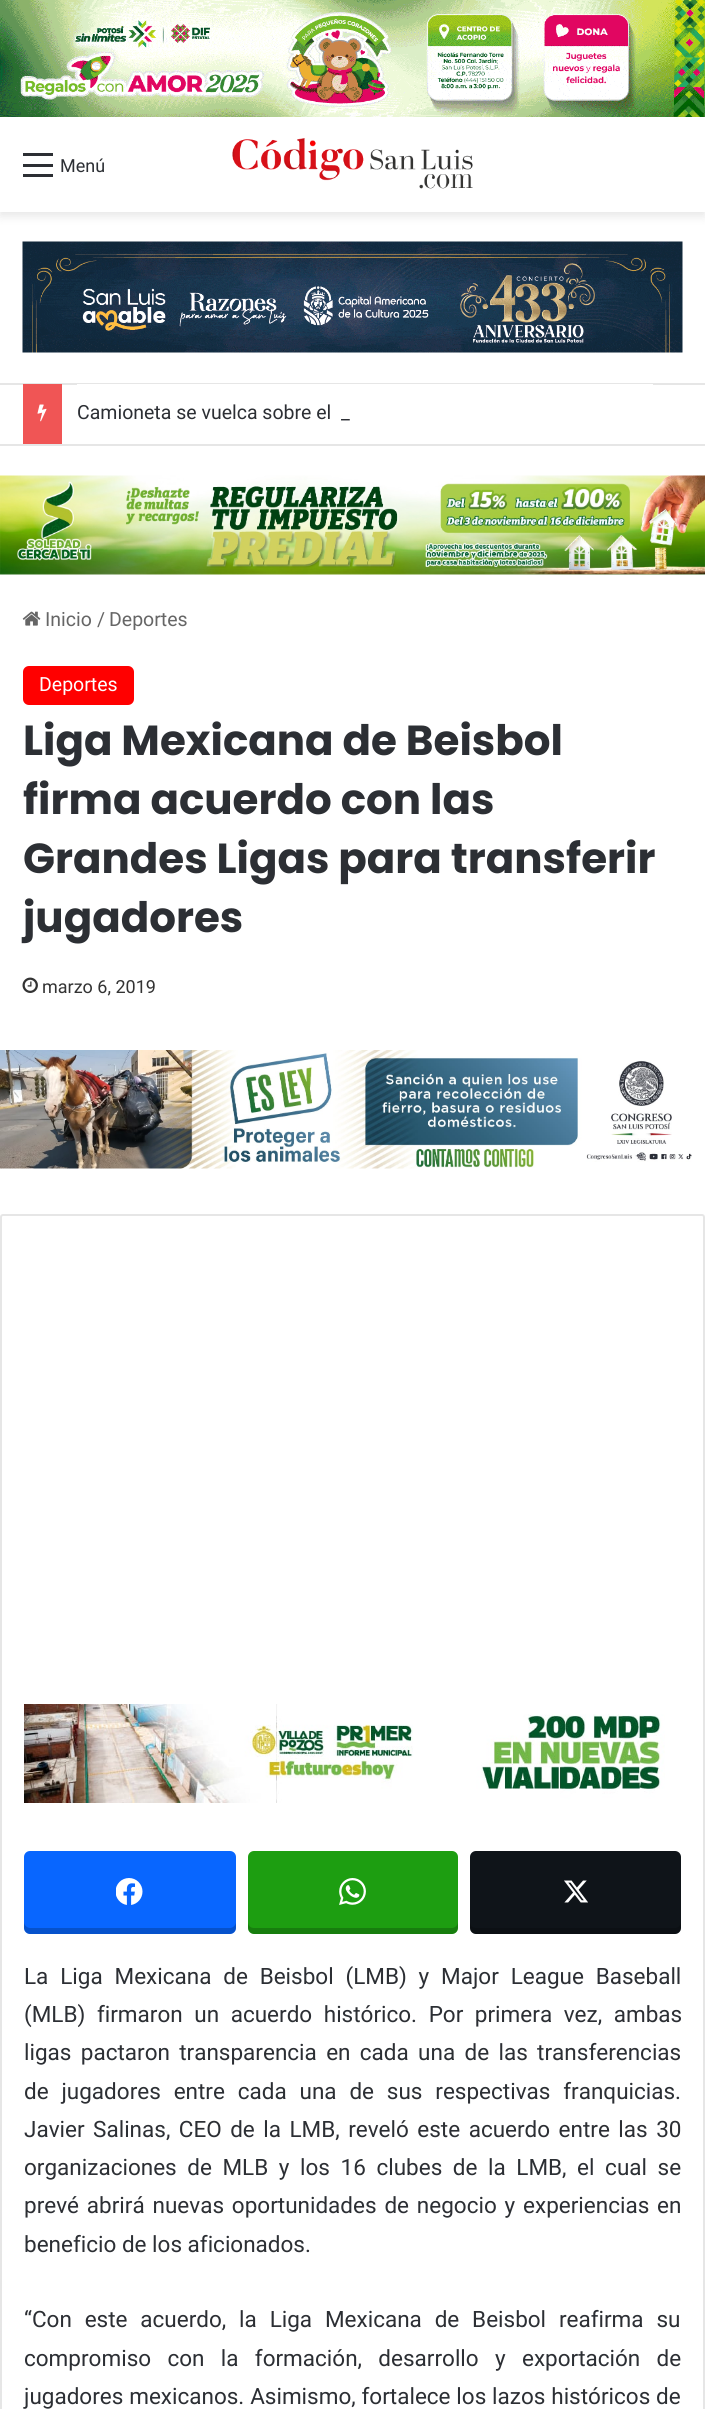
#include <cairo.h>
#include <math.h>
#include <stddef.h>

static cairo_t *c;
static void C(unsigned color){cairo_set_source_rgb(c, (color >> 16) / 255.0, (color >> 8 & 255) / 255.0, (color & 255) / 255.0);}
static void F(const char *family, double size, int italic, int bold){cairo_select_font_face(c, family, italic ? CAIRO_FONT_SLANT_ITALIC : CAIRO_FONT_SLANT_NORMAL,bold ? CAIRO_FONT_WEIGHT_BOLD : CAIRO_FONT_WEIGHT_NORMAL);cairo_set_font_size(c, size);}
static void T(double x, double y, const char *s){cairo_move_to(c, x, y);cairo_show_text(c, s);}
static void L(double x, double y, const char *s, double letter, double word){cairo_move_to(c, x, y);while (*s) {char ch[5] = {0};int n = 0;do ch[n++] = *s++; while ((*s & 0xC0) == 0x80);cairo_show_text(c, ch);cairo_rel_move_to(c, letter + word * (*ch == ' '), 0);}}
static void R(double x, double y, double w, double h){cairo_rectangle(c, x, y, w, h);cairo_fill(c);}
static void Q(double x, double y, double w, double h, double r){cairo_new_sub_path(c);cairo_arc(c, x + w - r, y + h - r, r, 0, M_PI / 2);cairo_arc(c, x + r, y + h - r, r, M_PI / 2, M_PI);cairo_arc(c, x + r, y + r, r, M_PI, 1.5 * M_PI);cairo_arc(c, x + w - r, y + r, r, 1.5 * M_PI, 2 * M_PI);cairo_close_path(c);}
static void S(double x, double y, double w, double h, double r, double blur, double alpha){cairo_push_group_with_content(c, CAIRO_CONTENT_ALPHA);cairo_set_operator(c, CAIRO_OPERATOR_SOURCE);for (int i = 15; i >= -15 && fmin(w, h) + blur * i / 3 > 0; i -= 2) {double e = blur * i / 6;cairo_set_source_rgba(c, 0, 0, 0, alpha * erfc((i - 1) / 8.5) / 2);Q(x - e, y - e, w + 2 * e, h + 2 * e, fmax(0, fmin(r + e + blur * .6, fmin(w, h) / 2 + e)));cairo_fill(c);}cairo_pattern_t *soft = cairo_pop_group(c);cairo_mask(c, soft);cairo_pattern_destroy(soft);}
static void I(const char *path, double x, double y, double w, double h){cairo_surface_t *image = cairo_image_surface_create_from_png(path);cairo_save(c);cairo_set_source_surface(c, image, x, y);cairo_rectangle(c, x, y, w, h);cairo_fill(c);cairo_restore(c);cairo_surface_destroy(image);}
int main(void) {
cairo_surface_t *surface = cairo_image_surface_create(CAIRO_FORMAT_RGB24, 705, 2409);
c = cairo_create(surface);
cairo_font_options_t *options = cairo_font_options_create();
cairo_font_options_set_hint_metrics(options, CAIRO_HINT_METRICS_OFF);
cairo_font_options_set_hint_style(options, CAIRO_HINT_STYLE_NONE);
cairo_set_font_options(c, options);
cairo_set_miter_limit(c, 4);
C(0xffffff);
cairo_paint(c);
I("1.png",0,0,705,117);
C(0x000000);
S(0,122,705,94,0,5,.1);
C(0xffffff);
R(0,117,705,95);
C(0x2c2f34);
R(23,164,30,3);
R(23,153,30,3);
R(23,174,30,3);
F("Roboto",18,0,0);
T(60,172,"Menú");
I("2.png",232,138,241,51);
I("3.png",22,241,661,112);
C(0xe6e6e6);
R(0,383,705,2);
R(0,444,705,2);
C(0xf05555);
R(23,384,39,60);
I("4.png",37,404,10,18);
C(0xffffff);
R(77,384,576,1);
F("Roboto",19.5,0,0);
C(0x2c2f34);
T(77,419,"Camioneta se vuelca sobre el");
T(341,419,"_");
I("5.png",0,475,705,100);
I("6.png",22,611,19,15);
C(0x666666);
T(45,626,"Inicio");
T(97,626,"/");
T(109,626,"Deportes");
C(0xff0000);
Q(23,666,111,39,6);
cairo_fill(c);
C(0xffffff);
T(39,691,"Deportes");
F("Poppins",42,0,1);
C(0x2c2f34);
T(23,755,"Liga Mexicana de Beisbol");
T(23,814,"firma acuerdo con las");
T(23,873,"Grandes Ligas para transferir");
T(23,932,"jugadores");
I("7.png",22,977,16,16);
F("Roboto",18,0,0);
C(0x333333);
T(42,993,"marzo 6, 2019");
I("8.png",0,1050,692,119);
Q(1,1215,703,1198,2);
C(0xe6e6e6);
cairo_stroke(c);
I("9.png",24,1704,641,99);
C(0x0866ff);
Q(24,1851,212,83,6);
cairo_fill(c);
cairo_set_source_rgba(c,0,0,0,0.2);
cairo_new_path(c);
cairo_move_to(c,24,1922);
cairo_line_to(c,24,1928);
cairo_curve_to(c,24,1931,27,1934,30,1934);
cairo_line_to(c,230,1934);
cairo_curve_to(c,233,1934,236,1931,236,1928);
cairo_line_to(c,236,1922);
cairo_curve_to(c,236,1925,233,1928,230,1928);
cairo_line_to(c,30,1928);
cairo_curve_to(c,27,1928,24,1925,24,1922);
cairo_close_path(c);
cairo_fill(c);
I("10.png",116,1878,27,27);
C(0x1d9e11);
Q(248,1851,210,83,6);
cairo_fill(c);
cairo_set_source_rgba(c,0,0,0,0.2);
cairo_new_path(c);
cairo_move_to(c,248,1922);
cairo_line_to(c,248,1928);
cairo_curve_to(c,248,1931,251,1934,254,1934);
cairo_line_to(c,452,1934);
cairo_curve_to(c,455,1934,458,1931,458,1928);
cairo_line_to(c,458,1922);
cairo_curve_to(c,458,1925,455,1928,452,1928);
cairo_line_to(c,254,1928);
cairo_curve_to(c,250,1928,248,1925,248,1922);
cairo_close_path(c);
cairo_fill(c);
I("11.png",339,1878,27,27);
C(0x0f1419);
Q(470,1851,211,83,6);
cairo_fill(c);
cairo_set_source_rgba(c,0,0,0,0.2);
cairo_new_path(c);
cairo_move_to(c,470,1922);
cairo_line_to(c,470,1928);
cairo_curve_to(c,470,1931,473,1934,476,1934);
cairo_line_to(c,675,1934);
cairo_curve_to(c,678,1934,681,1931,681,1928);
cairo_line_to(c,681,1922);
cairo_curve_to(c,681,1925,678,1928,675,1928);
cairo_line_to(c,476,1928);
cairo_curve_to(c,472,1928,470,1925,470,1922);
cairo_close_path(c);
cairo_fill(c);
I("12.png",564,1880,24,23);
F("Roboto",22.5,0,0);
C(0x2c2f34);
L(24,1984,"La Liga Mexicana de Beisbol (LMB) y Major League Baseball",0,6.25);
L(24,2022,"(MLB) firmaron un acuerdo histórico. Por primera vez, ambas",0,6);
L(24,2060,"ligas pactaron transparencia en cada una de las transferencias",0,3.75);
L(24,2099,"de jugadores entre cada una de sus respectivas franquicias.",0,7.25);
L(24,2137,"Javier Salinas, CEO de la LMB, reveló este acuerdo entre las 30",0,2.9);
L(24,2175,"organizaciones de MLB y los 16 clubes de la LMB, el cual se",0,5);
L(24,2213,"prevé abrirá nuevas oportunidades de negocio y experiencias en",0,2.25);
T(24,2252,"beneficio de los aficionados.");
L(24,2327,"“Con este acuerdo, la Liga Mexicana de Beisbol reafirma su",0,7.25);
L(24,2366,"compromiso con la formación, desarrollo y exportación de",0,10.75);
L(24,2404,"jugadores mexicanos. Asimismo, fortalece los lazos históricos de",0,.25);
cairo_surface_write_to_png(surface, "o.png");
cairo_font_options_destroy(options);
cairo_destroy(c);
cairo_surface_destroy(surface);
return 0;
}
